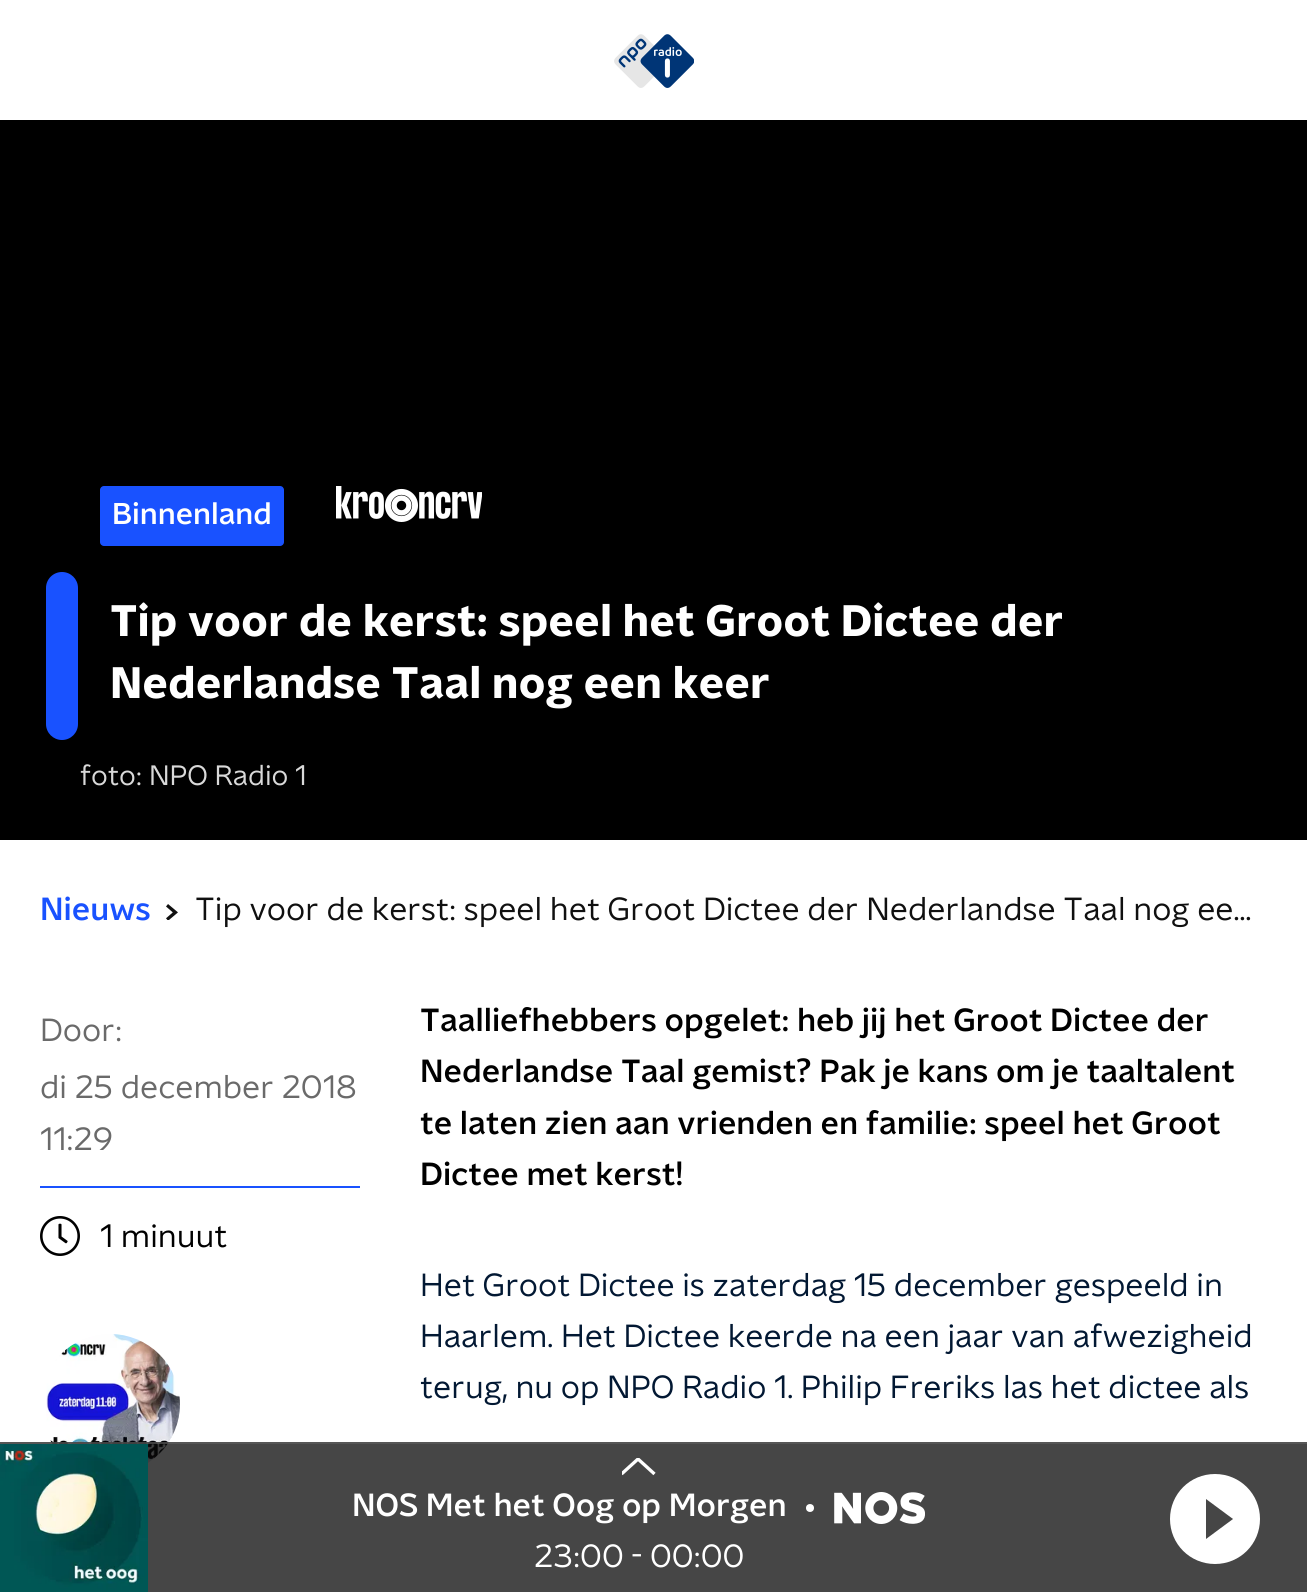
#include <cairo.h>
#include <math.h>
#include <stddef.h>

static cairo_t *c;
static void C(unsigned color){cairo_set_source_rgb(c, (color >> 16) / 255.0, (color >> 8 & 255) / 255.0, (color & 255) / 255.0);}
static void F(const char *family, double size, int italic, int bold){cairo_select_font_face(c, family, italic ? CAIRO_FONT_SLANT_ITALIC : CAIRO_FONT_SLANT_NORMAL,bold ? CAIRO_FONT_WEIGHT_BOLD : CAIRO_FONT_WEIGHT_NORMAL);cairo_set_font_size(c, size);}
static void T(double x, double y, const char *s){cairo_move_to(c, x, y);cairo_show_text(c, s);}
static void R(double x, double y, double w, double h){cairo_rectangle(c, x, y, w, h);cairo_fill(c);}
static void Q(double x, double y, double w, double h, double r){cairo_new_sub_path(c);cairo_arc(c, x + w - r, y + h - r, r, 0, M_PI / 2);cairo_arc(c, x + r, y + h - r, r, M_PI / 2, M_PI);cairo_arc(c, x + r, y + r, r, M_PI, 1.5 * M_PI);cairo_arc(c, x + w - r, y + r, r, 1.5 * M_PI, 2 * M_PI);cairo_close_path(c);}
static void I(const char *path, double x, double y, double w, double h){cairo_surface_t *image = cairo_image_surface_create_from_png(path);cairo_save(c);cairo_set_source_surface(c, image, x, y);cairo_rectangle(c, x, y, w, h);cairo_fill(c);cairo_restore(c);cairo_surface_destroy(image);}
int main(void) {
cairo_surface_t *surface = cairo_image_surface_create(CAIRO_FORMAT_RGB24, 1307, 1592);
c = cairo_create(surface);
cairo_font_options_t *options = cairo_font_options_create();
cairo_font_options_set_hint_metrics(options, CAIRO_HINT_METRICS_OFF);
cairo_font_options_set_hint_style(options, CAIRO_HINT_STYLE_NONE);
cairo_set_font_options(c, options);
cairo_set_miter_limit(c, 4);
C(0xffffff);
cairo_paint(c);
I("1.png",614,34,80,54);
C(0x000000);
R(0,120,1307,720);
C(0x1952ff);
Q(100,486,184,60,4);
cairo_fill(c);
F("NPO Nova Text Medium",30,0,0);
C(0xffffff);
T(112,524,"Binnenland");
I("2.png",336,486,146,36);
C(0x1952ff);
Q(46,572,32,168,16);
cairo_fill(c);
F("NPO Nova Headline",44,0,1);
C(0xffffff);
T(110,636,"Tip voor de kerst: speel het Groot Dictee der");
T(110,698,"Nederlandse Taal nog een keer");
F("NPO Nova Text",28,0,0);
C(0xd9d9d9);
T(80,785,"foto: NPO Radio 1");
F("NPO Nova Text Medium",32,0,0);
C(0x1952ff);
T(40,920,"Nieuws");
I("3.png",166,904,12,16);
F("NPO Nova Text",32,0,0);
C(0x101010);
T(195,920,"Tip voor de kerst: speel het Groot Dictee der Nederlandse Taal nog ee…");
C(0x6a6a6a);
T(40,1041,"Door:");
T(40,1098,"di 25 december 2018");
T(40,1150,"11:29");
C(0x1952ff);
R(40,1186,320,2);
I("4.png",40,1216,40,40);
C(0x000000);
T(100,1247,"1 minuut");
F("NPO Nova Text Medium",32,0,0);
T(420,1031,"Taalliefhebbers opgelet: heb jij het Groot Dictee der");
T(420,1082,"Nederlandse Taal gemist? Pak je kans om je taaltalent");
T(420,1134,"te laten zien aan vrienden en familie: speel het Groot");
T(420,1185,"Dictee met kerst!");
F("NPO Nova Text",32,0,0);
C(0x021833);
T(420,1296,"Het Groot Dictee is zaterdag 15 december gespeeld in");
T(420,1347,"Haarlem. Het Dictee keerde na een jaar van afwezigheid");
T(420,1398,"terug, nu op NPO Radio 1. Philip Freriks las het dictee als");
I("5.png",46,1334,134,129);
cairo_set_source_rgba(c,0.035,0.035,0.035,0.75);
R(0,1442,1307,150);
cairo_set_source_rgba(c,0.373,0.373,0.373,0.65);
R(0,1442,1307,2);
I("6.png",0,1444,148,148);
cairo_save(c);
cairo_rectangle(c,622,1458,36,18);
cairo_clip(c);
cairo_new_path(c);
cairo_move_to(c,654.5,1474);
cairo_line_to(c,638,1459);
cairo_line_to(c,621.5,1474);
C(0xffffff);
cairo_set_line_width(c,3.3);
cairo_stroke(c);
cairo_restore(c);
F("NPO Nova Text Medium",32,0,0);
C(0xffffff);
T(352,1516,"NOS Met het Oog op Morgen");
cairo_new_path(c);
cairo_arc(c,810,1508,4,0,2 * M_PI);
cairo_fill(c);
I("7.png",834,1492,91,32);
F("NPO Nova Text",32,0,0);
T(534,1567,"23:00 - 00:00");
cairo_new_path(c);
cairo_move_to(c,1215,1474);
cairo_curve_to(c,1190,1474,1170,1494,1170,1519);
cairo_curve_to(c,1170,1544,1190,1564,1215,1564);
cairo_curve_to(c,1240,1564,1260,1544,1260,1519);
cairo_curve_to(c,1260,1494,1240,1474,1215,1474);
cairo_close_path(c);
cairo_move_to(c,1206,1539);
cairo_line_to(c,1206,1499);
cairo_line_to(c,1233,1519);
cairo_close_path(c);
cairo_fill(c);
cairo_surface_write_to_png(surface, "o.png");
cairo_font_options_destroy(options);
cairo_destroy(c);
cairo_surface_destroy(surface);
return 0;
}
